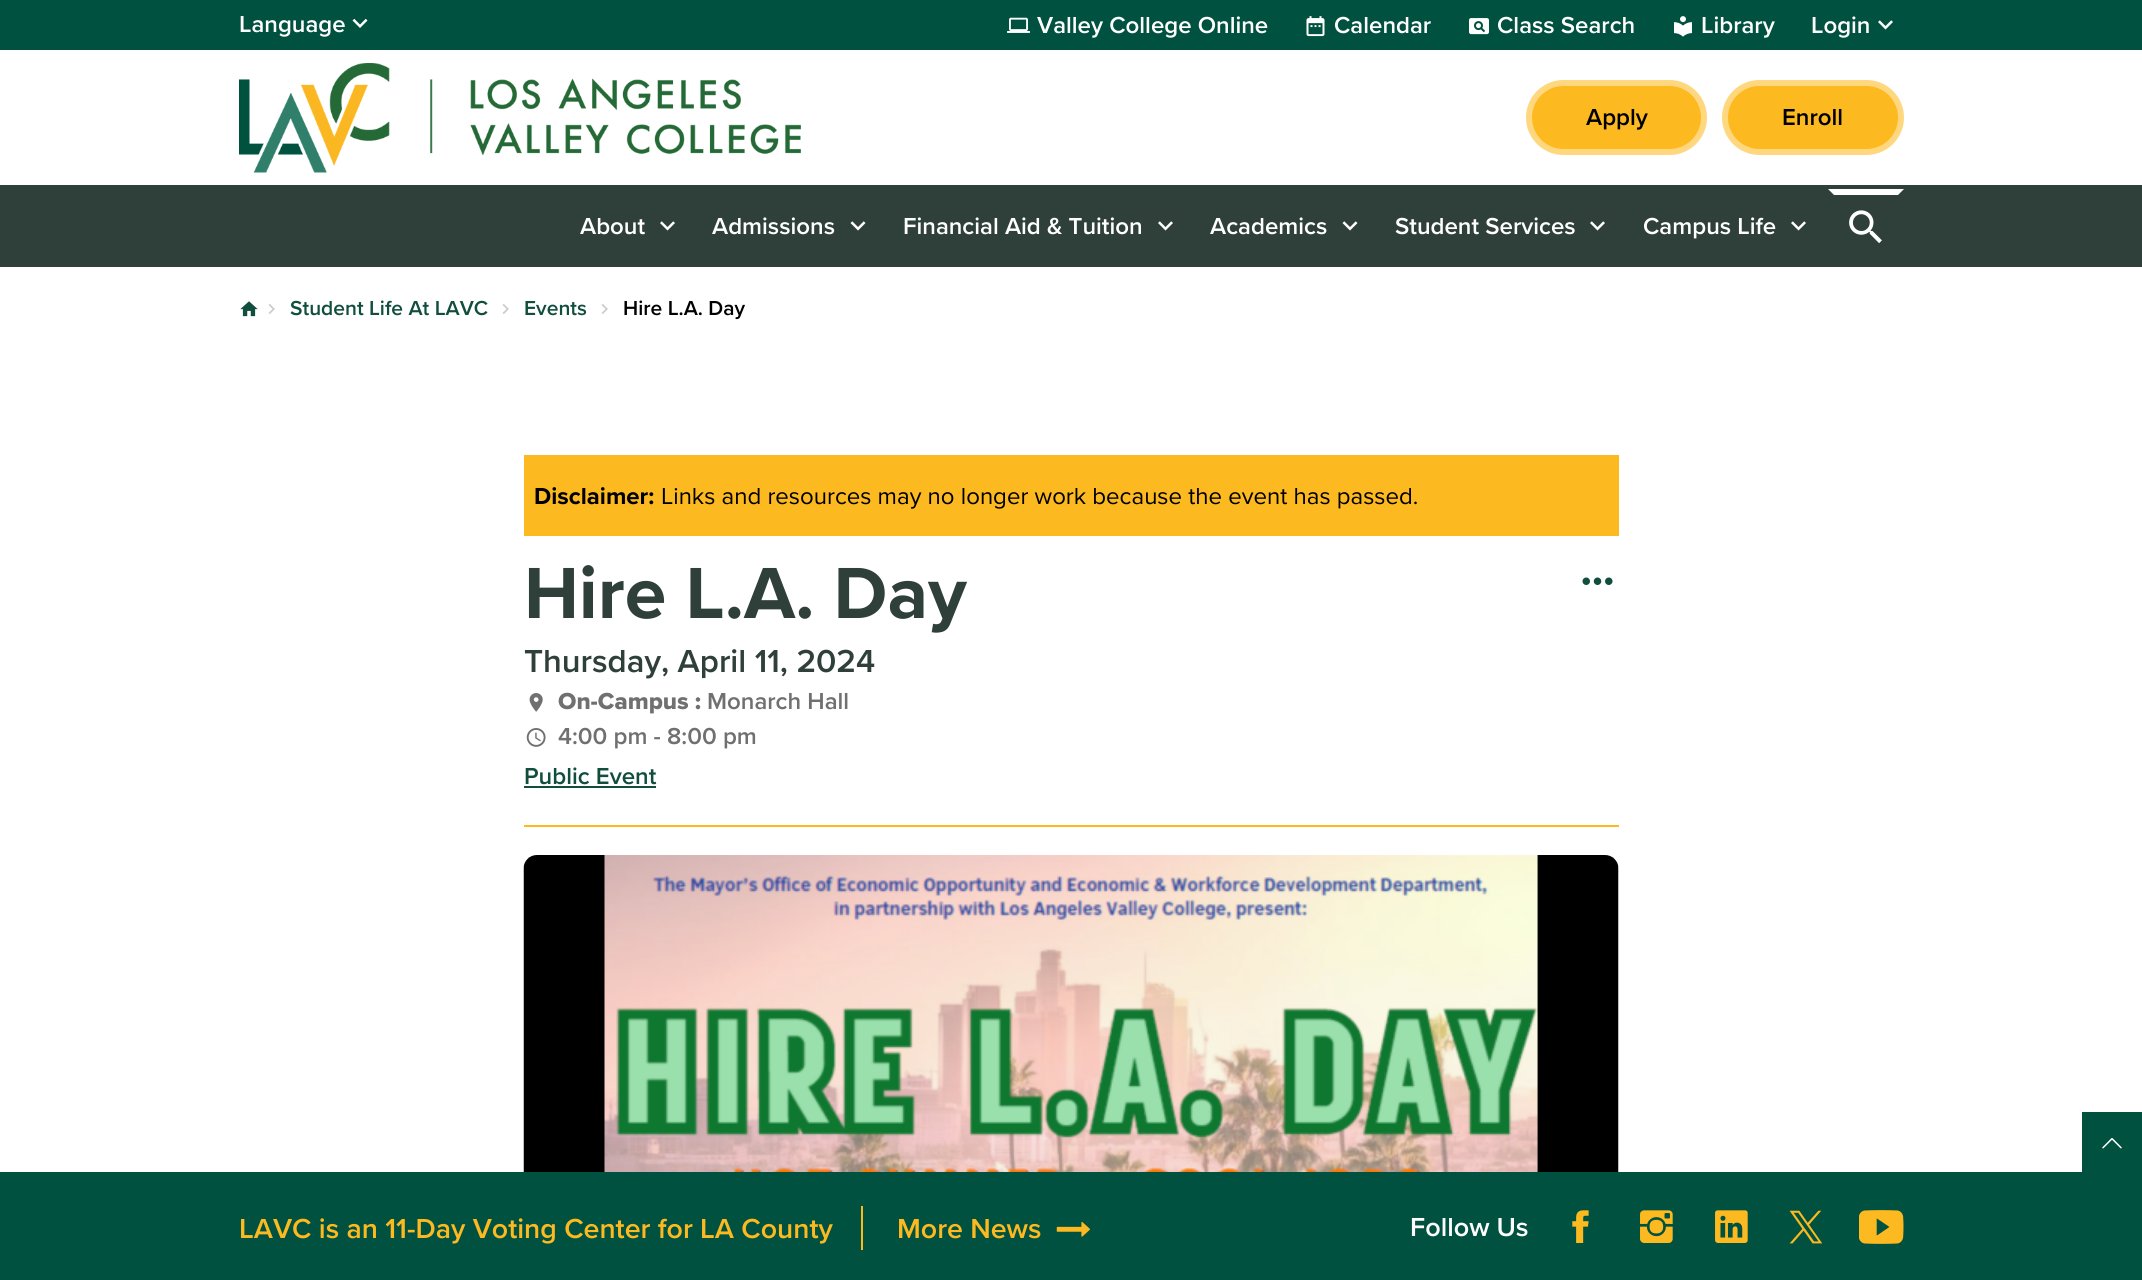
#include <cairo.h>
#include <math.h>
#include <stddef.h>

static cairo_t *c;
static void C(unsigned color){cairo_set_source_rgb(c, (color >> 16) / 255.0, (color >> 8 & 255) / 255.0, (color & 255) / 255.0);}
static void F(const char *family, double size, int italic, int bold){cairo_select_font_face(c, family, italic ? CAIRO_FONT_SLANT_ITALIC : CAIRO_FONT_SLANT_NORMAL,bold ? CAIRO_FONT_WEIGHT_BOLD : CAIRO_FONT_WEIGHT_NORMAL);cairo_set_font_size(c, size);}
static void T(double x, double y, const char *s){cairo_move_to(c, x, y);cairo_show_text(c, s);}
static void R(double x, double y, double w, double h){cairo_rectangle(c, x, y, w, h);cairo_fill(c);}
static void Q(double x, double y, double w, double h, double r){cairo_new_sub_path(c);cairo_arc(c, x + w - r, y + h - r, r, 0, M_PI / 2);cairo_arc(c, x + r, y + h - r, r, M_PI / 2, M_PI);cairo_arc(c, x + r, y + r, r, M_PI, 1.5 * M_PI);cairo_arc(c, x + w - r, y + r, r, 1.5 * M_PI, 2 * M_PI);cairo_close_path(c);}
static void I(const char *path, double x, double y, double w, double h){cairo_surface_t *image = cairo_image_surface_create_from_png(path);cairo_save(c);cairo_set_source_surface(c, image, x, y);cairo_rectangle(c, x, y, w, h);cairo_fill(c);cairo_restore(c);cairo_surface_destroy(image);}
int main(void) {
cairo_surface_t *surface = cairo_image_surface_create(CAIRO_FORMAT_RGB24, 2142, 1280);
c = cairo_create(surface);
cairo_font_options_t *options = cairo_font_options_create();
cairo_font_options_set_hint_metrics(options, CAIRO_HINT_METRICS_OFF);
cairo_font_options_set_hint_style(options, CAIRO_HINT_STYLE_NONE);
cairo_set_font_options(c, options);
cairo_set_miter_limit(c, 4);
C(0xffffff);
cairo_paint(c);
C(0x00513f);
R(0,0,2142,50);
F("Proxima Nova SemiBold",24,0,0);
C(0xffffff);
T(239,32,"Language");
I("1.png",352,18,16,10);
I("2.png",1007,17,23,16);
T(1037,33,"Valley College Online");
I("3.png",1306,16,19,21);
T(1334,33,"Calendar");
I("4.png",1469,18,20,17);
T(1497,33,"Class Search");
I("5.png",1674,16,18,21);
T(1701,33,"Library");
T(1811,33,"Login");
I("6.png",1878,20,15,10);
I("7.png",239,63,562,110);
C(0xfcb920);
Q(1529,83,175,69,34.5);
cairo_fill_preserve(c);
C(0xffd77e);
cairo_set_line_width(c,6);
cairo_stroke(c);
C(0x000000);
T(1586,125,"Apply");
C(0xfcb920);
Q(1725,83,176,69,34.5);
cairo_fill_preserve(c);
C(0xffd77e);
cairo_stroke(c);
C(0x000000);
T(1782,125,"Enroll");
C(0x2f3f3a);
R(0,185,2142,82);
C(0xffffff);
T(580,234,"About");
I("8.png",660,221,15,10);
T(712,234,"Admissions");
I("9.png",850,221,16,10);
T(903,234,"Financial Aid & Tuition");
I("8.png",1158,221,15,10);
T(1210,234,"Academics");
I("9.png",1342,221,16,10);
T(1395,234,"Student Services");
I("8.png",1590,221,15,10);
T(1643,234,"Campus Life");
I("8.png",1791,221,15,10);
I("10.png",1849,210,33,34);
cairo_new_path(c);
cairo_move_to(c,1828,189);
cairo_line_to(c,1904,189);
cairo_line_to(c,1898,195);
cairo_line_to(c,1834,195);
cairo_close_path(c);
cairo_fill(c);
I("11.png",240,301,18,16);
I("12.png",268,304,7,10);
F("Proxima Nova SemiBold",21,0,0);
C(0x114e3e);
T(290,315,"Student Life At LAVC");
I("12.png",502,304,7,10);
T(524,315,"Events");
I("12.png",601,304,7,10);
C(0x000000);
T(623,315,"Hire L.A. Day");
C(0xfcb920);
R(524,455,1095,81);
F("Proxima Nova",24,0,1);
C(0x000000);
T(534,504,"Disclaimer:");
F("Proxima Nova",24,0,0);
T(661,504,"Links and resources may no longer work because the event has passed.");
F("Proxima Nova",75,0,1);
C(0x2f3f3a);
T(524,618,"Hire L.A. Day");
I("13.png",1582,577,31,8);
F("Proxima Nova SemiBold",33,0,0);
T(524,672,"Thursday, April 11, 2024");
I("14.png",529,693,14,19);
F("Proxima Nova ExtraBold",24,0,0);
C(0x707070);
T(558,709,"On-Campus :");
F("Proxima Nova SemiBold",24,0,0);
T(707,709,"Monarch Hall");
I("15.png",526,728,20,19);
T(558,744,"4:00 pm - 8:00 pm");
C(0x114e3e);
T(524,784,"Public Event");
R(524,786,132,2);
C(0xfcb920);
R(524,825,1095,2);
I("16.png",523,855,1096,317);
C(0x00513f);
R(0,1172,2142,108);
R(2082,1112,60,60);
I("17.png",2102,1138,20,11);
F("Proxima Nova SemiBold",28.5,0,0);
C(0xfcb920);
T(239,1238,"LAVC is an 11-Day Voting Center for LA County");
R(861,1206,2,44);
T(897,1238,"More News");
I("18.png",1056,1222,34,15);
F("Proxima Nova SemiBold",27,0,0);
C(0xffffff);
T(1410,1236,"Follow Us");
I("19.png",1572,1210,17,33);
I("20.png",1640,1210,33,33);
I("21.png",1715,1210,33,33);
I("22.png",1789,1210,34,34);
I("23.png",1859,1210,45,34);
cairo_surface_write_to_png(surface, "o.png");
cairo_font_options_destroy(options);
cairo_destroy(c);
cairo_surface_destroy(surface);
return 0;
}
